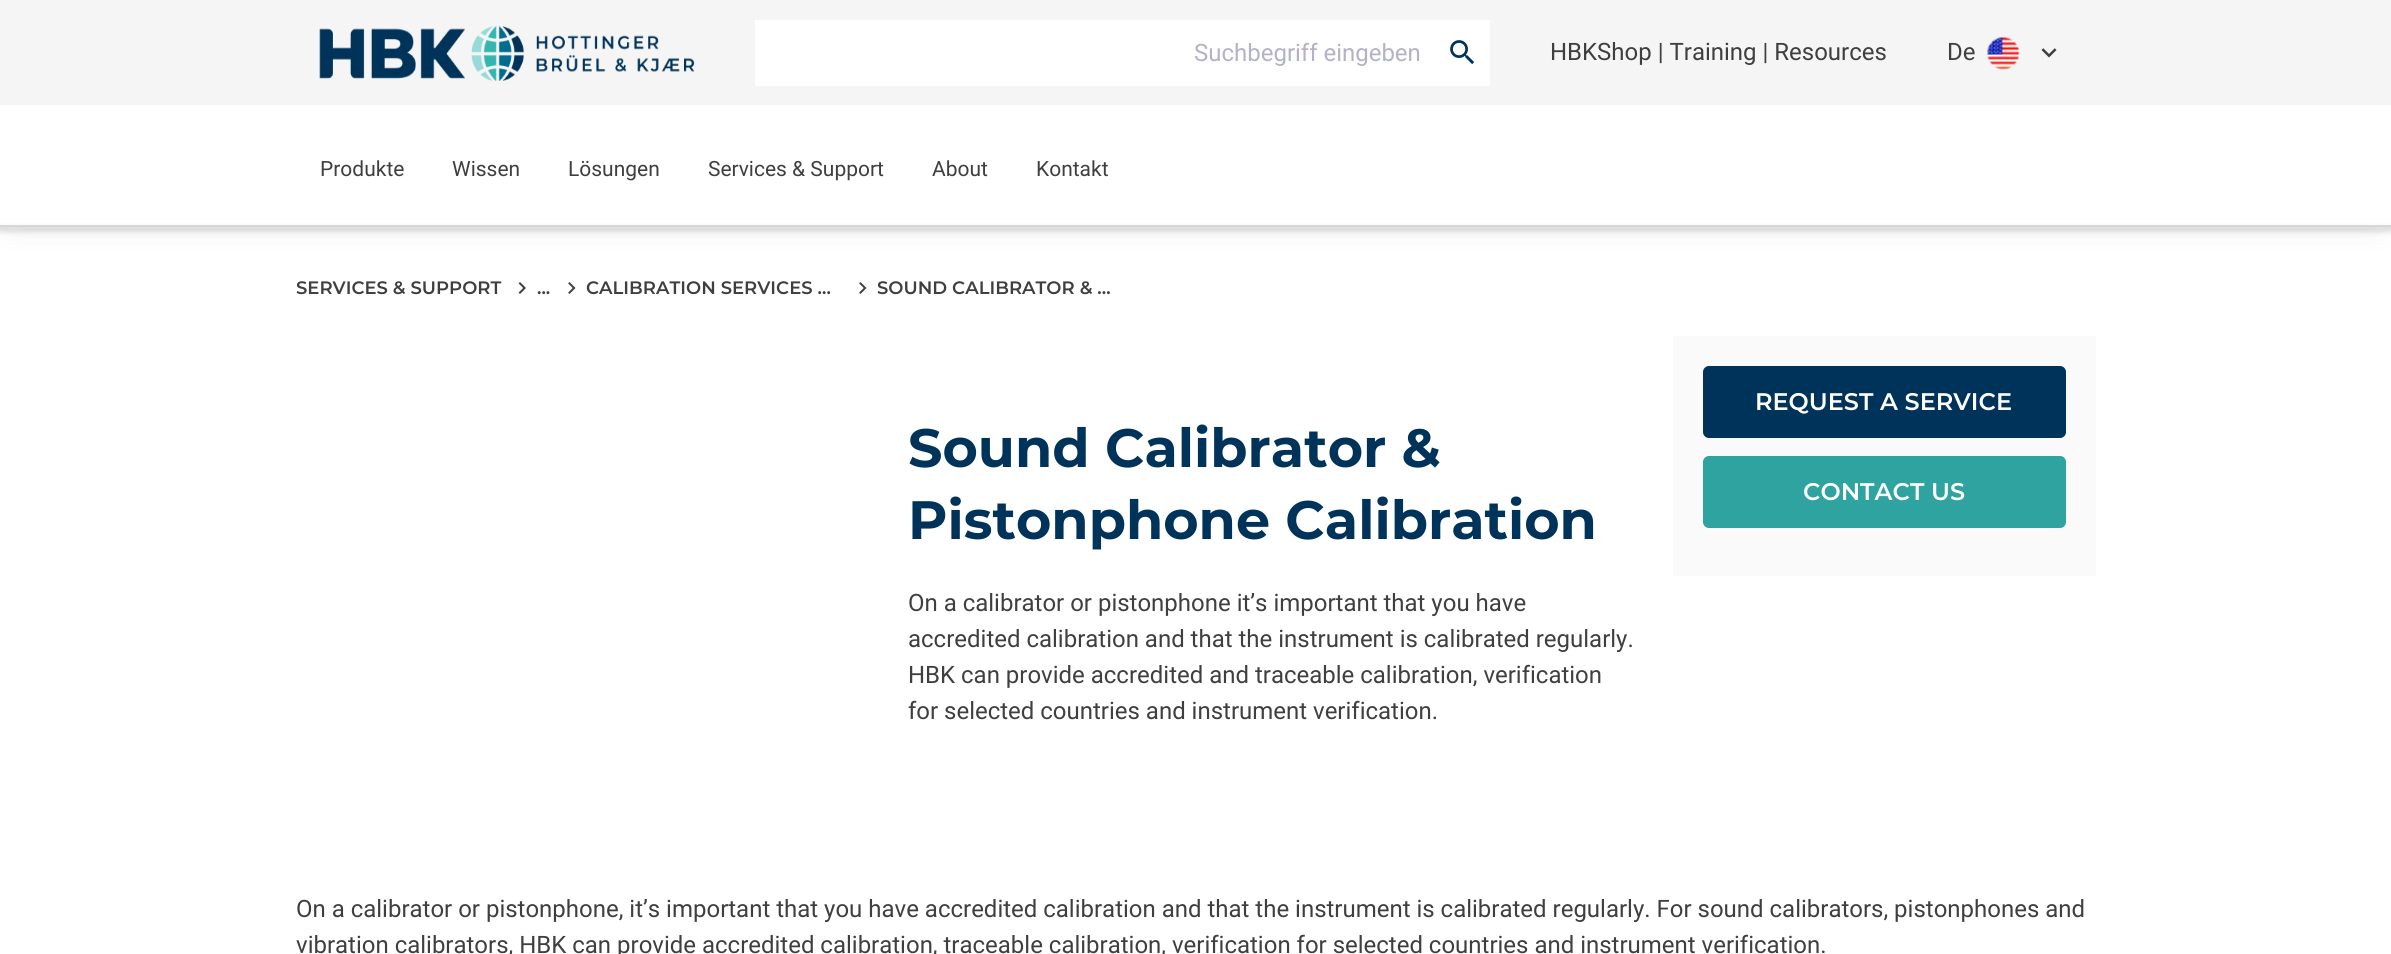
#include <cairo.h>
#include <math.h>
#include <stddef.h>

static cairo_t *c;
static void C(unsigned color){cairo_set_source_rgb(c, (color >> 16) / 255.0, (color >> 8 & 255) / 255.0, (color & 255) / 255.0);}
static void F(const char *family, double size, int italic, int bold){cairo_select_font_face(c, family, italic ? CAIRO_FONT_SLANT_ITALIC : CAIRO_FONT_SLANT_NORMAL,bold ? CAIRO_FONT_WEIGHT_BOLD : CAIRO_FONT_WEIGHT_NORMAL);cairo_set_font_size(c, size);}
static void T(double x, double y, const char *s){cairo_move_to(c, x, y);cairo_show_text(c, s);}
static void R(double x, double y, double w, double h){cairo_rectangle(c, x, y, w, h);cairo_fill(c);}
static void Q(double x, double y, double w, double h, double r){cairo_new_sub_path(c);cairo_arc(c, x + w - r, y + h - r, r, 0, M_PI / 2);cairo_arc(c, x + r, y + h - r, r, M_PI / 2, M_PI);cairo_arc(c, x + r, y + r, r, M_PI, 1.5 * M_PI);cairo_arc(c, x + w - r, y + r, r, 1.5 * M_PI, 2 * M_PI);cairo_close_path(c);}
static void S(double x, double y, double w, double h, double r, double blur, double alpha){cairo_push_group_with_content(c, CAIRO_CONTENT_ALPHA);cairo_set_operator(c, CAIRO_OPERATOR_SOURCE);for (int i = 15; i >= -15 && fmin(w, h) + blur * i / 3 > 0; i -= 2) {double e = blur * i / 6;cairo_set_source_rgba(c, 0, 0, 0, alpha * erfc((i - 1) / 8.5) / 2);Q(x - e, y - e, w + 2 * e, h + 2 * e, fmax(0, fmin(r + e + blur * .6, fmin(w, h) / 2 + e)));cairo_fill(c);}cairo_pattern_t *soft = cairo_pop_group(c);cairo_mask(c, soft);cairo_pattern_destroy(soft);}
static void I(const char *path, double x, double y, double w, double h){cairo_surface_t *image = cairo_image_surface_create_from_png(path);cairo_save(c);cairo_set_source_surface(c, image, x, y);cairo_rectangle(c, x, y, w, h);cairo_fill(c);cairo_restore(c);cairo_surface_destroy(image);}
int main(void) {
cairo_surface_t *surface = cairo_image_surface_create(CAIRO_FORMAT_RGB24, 2391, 954);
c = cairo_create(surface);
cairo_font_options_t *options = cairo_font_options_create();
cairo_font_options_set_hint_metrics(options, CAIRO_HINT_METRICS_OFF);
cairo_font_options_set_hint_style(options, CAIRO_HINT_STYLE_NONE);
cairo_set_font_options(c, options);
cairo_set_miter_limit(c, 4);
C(0xffffff);
cairo_paint(c);
C(0x000000);
S(15,15,2361,197,0,22.5,.16);
C(0xffffff);
R(0,105,2391,120);
C(0xe0e0e0);
R(0,225,2391,2);
C(0xf5f5f5);
R(0,0,2391,105);
I("1.png",319,25,376,56);
C(0xffffff);
R(755,20,735,66);
F("Roboto",24,0,0);
C(0xb3b2c8);
T(1194,61,"Suchbegriff eingeben");
I("2.png",1450,40,25,25);
C(0x3f3f3f);
T(1550,60,"HBKShop | Training | Resources");
T(1947,60,"De");
I("3.png",1987,37,33,33);
I("4.png",2041,48,16,10);
F("Roboto",21,0,0);
T(320,176,"Produkte");
T(452,176,"Wissen");
T(568,176,"Lösungen");
T(708,176,"Services & Support");
T(932,176,"About");
T(1036,176,"Kontakt");
C(0x000000);
S(0,228,2391,3,0,3,.16);
C(0xe0e0e0);
R(0,227,2391,2);
F("Montserrat SemiBold",18,0,0);
C(0x3f3f3f);
T(296,294,"SERVICES & SUPPORT");
I("5.png",518,282,8,12);
T(537,294,"...");
I("6.png",568,282,8,12);
T(586,294,"CALIBRATION SERVICES …");
I("6.png",859,282,8,12);
T(877,294,"SOUND CALIBRATOR & …");
F("Montserrat",54,0,1);
C(0x00335a);
T(908,467,"Sound Calibrator &");
T(908,539,"Pistonphone Calibration");
F("Roboto",24,0,0);
C(0x3f3f3f);
T(908,611,"On a calibrator or pistonphone it’s important that you have");
T(908,647,"accredited calibration and that the instrument is calibrated regularly.");
T(908,683,"HBK can provide accredited and traceable calibration, verification");
T(908,719,"for selected countries and instrument verification.");
C(0xfafafa);
R(1673,336,423,240);
C(0x00335a);
Q(1704.5,367.5,360,69,4.5);
cairo_fill_preserve(c);
cairo_set_line_width(c,3);
cairo_stroke(c);
F("Montserrat SemiBold",24,0,0);
C(0xffffff);
T(1755,410,"REQUEST A SERVICE");
C(0x2ea39f);
Q(1704.5,457.5,360,69,4.5);
cairo_fill_preserve(c);
cairo_stroke(c);
C(0xffffff);
T(1803,500,"CONTACT US");
F("Roboto",24,0,0);
C(0x3f3f3f);
T(296,917,"On a calibrator or pistonphone, it’s important that you have accredited calibration and that the instrument is calibrated regularly. For sound calibrators, pistonphones and");
T(296,953,"vibration calibrators, HBK can provide accredited calibration, traceable calibration, verification for selected countries and instrument verification.");
cairo_surface_write_to_png(surface, "o.png");
cairo_font_options_destroy(options);
cairo_destroy(c);
cairo_surface_destroy(surface);
return 0;
}
